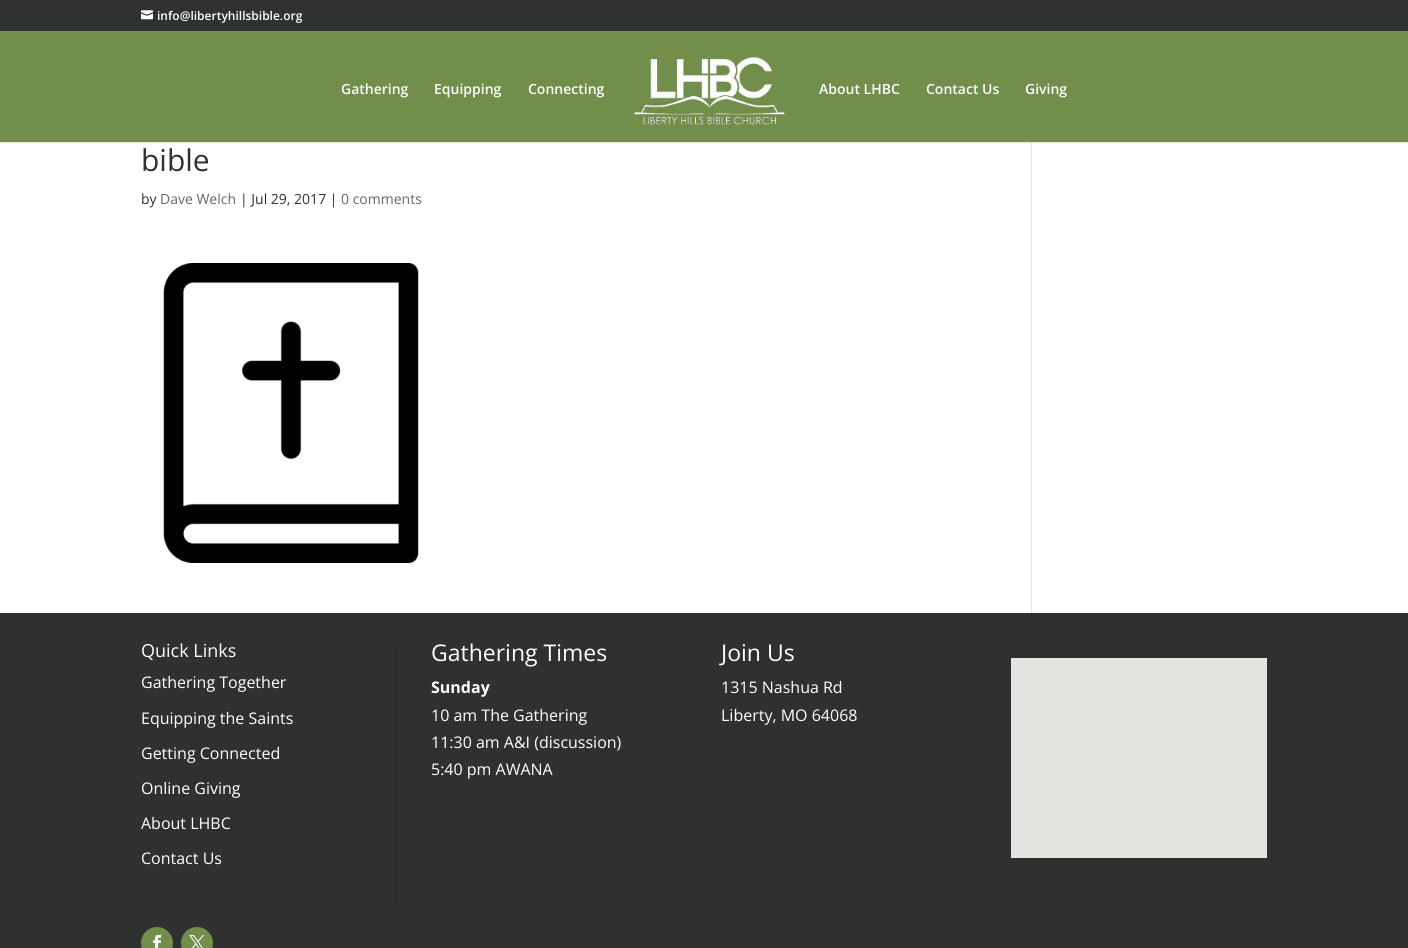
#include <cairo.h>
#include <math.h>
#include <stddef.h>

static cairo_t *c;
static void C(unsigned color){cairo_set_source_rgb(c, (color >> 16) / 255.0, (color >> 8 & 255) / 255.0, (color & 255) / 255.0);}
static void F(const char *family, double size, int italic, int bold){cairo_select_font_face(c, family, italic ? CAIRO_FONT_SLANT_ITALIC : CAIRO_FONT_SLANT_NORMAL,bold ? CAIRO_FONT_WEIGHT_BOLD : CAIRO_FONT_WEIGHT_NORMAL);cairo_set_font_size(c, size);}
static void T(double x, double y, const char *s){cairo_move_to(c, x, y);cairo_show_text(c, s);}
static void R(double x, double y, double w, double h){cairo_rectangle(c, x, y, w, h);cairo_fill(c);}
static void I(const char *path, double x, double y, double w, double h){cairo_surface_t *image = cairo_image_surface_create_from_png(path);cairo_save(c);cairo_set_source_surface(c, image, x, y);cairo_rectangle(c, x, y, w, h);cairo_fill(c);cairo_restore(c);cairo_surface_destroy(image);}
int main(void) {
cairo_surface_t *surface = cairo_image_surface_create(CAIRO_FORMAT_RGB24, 1408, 948);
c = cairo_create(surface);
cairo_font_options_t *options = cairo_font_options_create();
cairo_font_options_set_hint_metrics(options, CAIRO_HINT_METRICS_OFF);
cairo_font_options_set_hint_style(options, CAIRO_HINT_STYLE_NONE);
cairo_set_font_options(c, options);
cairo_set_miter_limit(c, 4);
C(0xffffff);
cairo_paint(c);
C(0xe6e6e6);
R(0,142,1408,1);
C(0x303231);
R(0,0,1408,31);
I("1.png",141,10,12,10);
F("Open Sans SemiBold",12,0,0);
C(0xffffff);
T(157,20,"info@libertyhillsbible.org");
C(0x718e4b);
R(0,31,1408,111);
F("Open Sans SemiBold",14,0,0);
C(0xffffff);
T(341,94,"Gathering");
T(434,94,"Equipping");
T(528,94,"Connecting");
I("2.png",634,57,151,68);
T(819,94,"About LHBC");
T(926,94,"Contact Us");
T(1025,94,"Giving");
F("Open Sans",30,0,0);
C(0x2f3130);
T(141,171,"bible");
F("Open Sans",14,0,0);
T(141,204,"by");
C(0x666666);
T(160,204,"Dave Welch");
C(0x2f3130);
T(240,204,"| Jul 29, 2017 |");
C(0x666666);
T(341,204,"0 comments");
I("3.png",163,263,256,300);
C(0xe2e2e2);
R(1031,143,1,470);
C(0xcbcbcb);
R(1031,142,1,1);
C(0x2f3130);
R(0,613,1408,335);
C(0x2a2c2b);
R(396,641,1,269);
F("Open Sans",18,0,0);
C(0xffffff);
T(141,657,"Quick Links");
F("Open Sans",16,0,0);
T(141,688,"Gathering Together");
T(141,724,"Equipping the Saints");
T(141,759,"Getting Connected");
T(141,794,"Online Giving");
T(141,829,"About LHBC");
T(141,864,"Contact Us");
C(0x718e4b);
cairo_new_path(c);
cairo_arc(c,157,943,16,0,2 * M_PI);
cairo_fill(c);
I("4.png",153,935,8,13);
cairo_arc(c,197,943,16,0,2 * M_PI);
cairo_fill(c);
I("5.png",189,935,16,13);
F("Open Sans",23,0,0);
C(0xffffff);
T(431,661,"Gathering Times");
F("Open Sans",16,0,1);
T(431,693,"Sunday");
F("Open Sans",16,0,0);
T(431,721,"10 am The Gathering");
T(431,748,"11:30 am A&I (discussion)");
T(431,775,"5:40 pm AWANA");
F("Open Sans",23,0,0);
T(721,661,"Join Us");
F("Open Sans",16,0,0);
T(721,693,"1315 Nashua Rd");
T(721,721,"Liberty, MO 64068");
C(0xe5e3df);
R(1011,658,256,200);
cairo_surface_write_to_png(surface, "o.png");
cairo_font_options_destroy(options);
cairo_destroy(c);
cairo_surface_destroy(surface);
return 0;
}
